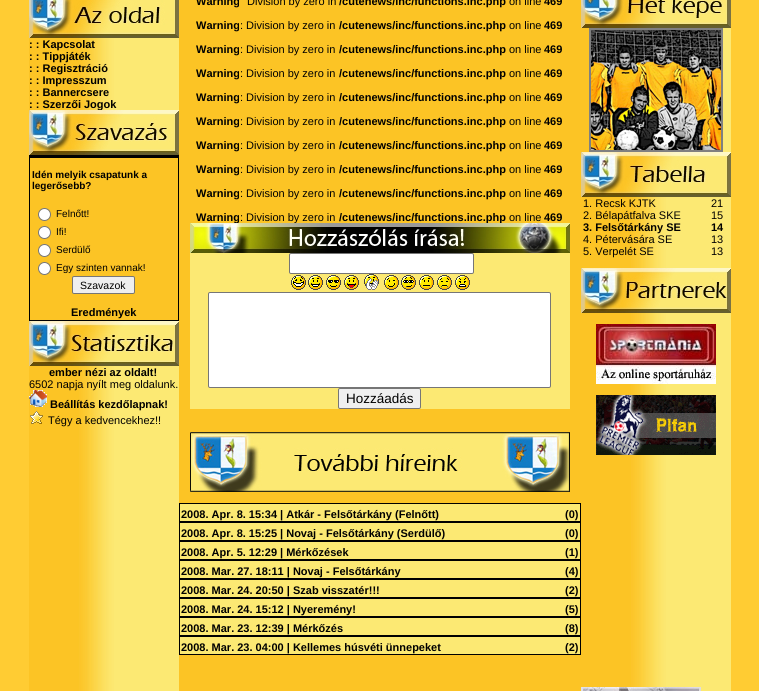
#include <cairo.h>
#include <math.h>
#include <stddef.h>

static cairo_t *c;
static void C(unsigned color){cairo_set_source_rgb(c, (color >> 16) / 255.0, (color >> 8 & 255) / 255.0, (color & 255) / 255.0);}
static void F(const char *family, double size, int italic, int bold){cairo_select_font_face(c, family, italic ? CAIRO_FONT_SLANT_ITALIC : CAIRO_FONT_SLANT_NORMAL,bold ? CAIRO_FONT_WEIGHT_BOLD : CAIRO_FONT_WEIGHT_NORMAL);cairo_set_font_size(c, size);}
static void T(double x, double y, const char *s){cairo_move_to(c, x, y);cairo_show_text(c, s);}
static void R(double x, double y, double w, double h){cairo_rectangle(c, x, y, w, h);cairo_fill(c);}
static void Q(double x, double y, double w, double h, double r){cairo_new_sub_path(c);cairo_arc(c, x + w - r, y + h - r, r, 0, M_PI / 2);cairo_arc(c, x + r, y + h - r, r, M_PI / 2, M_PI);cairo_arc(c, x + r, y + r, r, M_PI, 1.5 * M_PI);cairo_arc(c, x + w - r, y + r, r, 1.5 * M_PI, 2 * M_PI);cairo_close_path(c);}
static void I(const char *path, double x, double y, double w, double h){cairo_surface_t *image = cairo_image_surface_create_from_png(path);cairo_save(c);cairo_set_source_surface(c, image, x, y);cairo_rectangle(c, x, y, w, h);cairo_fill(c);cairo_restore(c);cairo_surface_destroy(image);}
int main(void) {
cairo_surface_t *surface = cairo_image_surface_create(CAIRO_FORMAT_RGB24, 759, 691);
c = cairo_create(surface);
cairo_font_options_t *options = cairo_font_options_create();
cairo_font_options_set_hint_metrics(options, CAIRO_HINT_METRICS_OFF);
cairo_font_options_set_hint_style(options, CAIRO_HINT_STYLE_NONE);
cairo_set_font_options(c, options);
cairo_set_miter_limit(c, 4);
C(0xffcc33);
cairo_paint(c);
I("1.png",29,38,150,653);
I("2.png",29,0,150,38);
F("Liberation Sans",11,0,1);
C(0x000000);
T(29,48,": : Kapcsolat");
T(29,60,": : Tippjáték");
T(29,72,": : Regisztráció");
T(29,84,": : Impresszum");
T(29,96,": : Bannercsere");
T(29,108,": : Szerzői Jogok");
I("3.png",29,110,150,45);
R(29,155,150,166);
C(0xfcc425);
R(30,158,148,162);
F("Liberation Sans",10,0,1);
C(0x000000);
T(32,178,"Idén melyik csapatunk a");
T(32,189,"legerősebb?");
C(0xffffff);
cairo_new_path(c);
cairo_arc(c,44.5,214.5,6,0,2 * M_PI);
cairo_fill_preserve(c);
C(0x767676);
cairo_set_line_width(c,1);
cairo_stroke(c);
F("Liberation Sans",10,0,0);
C(0x000000);
T(56,217,"Felnőtt!");
C(0xffffff);
cairo_new_path(c);
cairo_arc(c,44.5,232.5,6,0,2 * M_PI);
cairo_fill_preserve(c);
C(0x767676);
cairo_stroke(c);
C(0x000000);
T(56,235,"Ifi!");
C(0xffffff);
cairo_new_path(c);
cairo_arc(c,44.5,250.5,6,0,2 * M_PI);
cairo_fill_preserve(c);
C(0x767676);
cairo_stroke(c);
C(0x000000);
T(56,253,"Serdülő");
C(0xffffff);
cairo_new_path(c);
cairo_arc(c,44.5,268.5,6,0,2 * M_PI);
cairo_fill_preserve(c);
C(0x767676);
cairo_stroke(c);
C(0x000000);
T(56,271,"Egy szinten vannak!");
C(0xefefef);
Q(72.5,276.5,62,17,1.5);
cairo_fill_preserve(c);
C(0x767676);
cairo_stroke(c);
F("Liberation Sans",10.5,0,0);
C(0x000000);
T(80,289,"Szavazok");
F("Liberation Sans",11,0,1);
T(71,316,"Eredmények");
I("4.png",29,321,150,45);
T(49,376,"ember nézi az oldalt!");
F("Liberation Sans",11,0,0);
T(29,388,"6502 napja nyílt meg oldalunk.");
I("5.png",29,390,18,17);
F("Liberation Sans",11,0,1);
T(50,408,"Beállítás kezdőlapnak!");
I("6.png",30,411,13,13);
F("Liberation Sans",11,0,0);
T(48,424,"Tégy a kedvencekhez!!");
C(0xfcc425);
R(179,0,402,691);
F("Liberation Sans",11,0,1);
C(0x000000);
T(196,5,"Warning");
F("Liberation Sans",11,0,0);
T(247,5,"Division by zero in");
F("Liberation Sans",11,0,1);
T(339,5,"/cutenews/inc/functions.inc.php");
F("Liberation Sans",11,0,0);
T(509,5,"on line");
F("Liberation Sans",11,0,1);
T(544,5,"469");
T(196,29,"Warning");
F("Liberation Sans",11,0,0);
T(240,29,": Division by zero in");
F("Liberation Sans",11,0,1);
T(339,29,"/cutenews/inc/functions.inc.php");
F("Liberation Sans",11,0,0);
T(509,29,"on line");
F("Liberation Sans",11,0,1);
T(544,29,"469");
T(196,53,"Warning");
F("Liberation Sans",11,0,0);
T(240,53,": Division by zero in");
F("Liberation Sans",11,0,1);
T(339,53,"/cutenews/inc/functions.inc.php");
F("Liberation Sans",11,0,0);
T(509,53,"on line");
F("Liberation Sans",11,0,1);
T(544,53,"469");
T(196,77,"Warning");
F("Liberation Sans",11,0,0);
T(240,77,": Division by zero in");
F("Liberation Sans",11,0,1);
T(339,77,"/cutenews/inc/functions.inc.php");
F("Liberation Sans",11,0,0);
T(509,77,"on line");
F("Liberation Sans",11,0,1);
T(544,77,"469");
T(196,101,"Warning");
F("Liberation Sans",11,0,0);
T(240,101,": Division by zero in");
F("Liberation Sans",11,0,1);
T(339,101,"/cutenews/inc/functions.inc.php");
F("Liberation Sans",11,0,0);
T(509,101,"on line");
F("Liberation Sans",11,0,1);
T(544,101,"469");
T(196,125,"Warning");
F("Liberation Sans",11,0,0);
T(240,125,": Division by zero in");
F("Liberation Sans",11,0,1);
T(339,125,"/cutenews/inc/functions.inc.php");
F("Liberation Sans",11,0,0);
T(509,125,"on line");
F("Liberation Sans",11,0,1);
T(544,125,"469");
T(196,149,"Warning");
F("Liberation Sans",11,0,0);
T(240,149,": Division by zero in");
F("Liberation Sans",11,0,1);
T(339,149,"/cutenews/inc/functions.inc.php");
F("Liberation Sans",11,0,0);
T(509,149,"on line");
F("Liberation Sans",11,0,1);
T(544,149,"469");
T(196,173,"Warning");
F("Liberation Sans",11,0,0);
T(240,173,": Division by zero in");
F("Liberation Sans",11,0,1);
T(339,173,"/cutenews/inc/functions.inc.php");
F("Liberation Sans",11,0,0);
T(509,173,"on line");
F("Liberation Sans",11,0,1);
T(544,173,"469");
T(196,197,"Warning");
F("Liberation Sans",11,0,0);
T(240,197,": Division by zero in");
F("Liberation Sans",11,0,1);
T(339,197,"/cutenews/inc/functions.inc.php");
F("Liberation Sans",11,0,0);
T(509,197,"on line");
F("Liberation Sans",11,0,1);
T(544,197,"469");
T(196,221,"Warning");
F("Liberation Sans",11,0,0);
T(240,221,": Division by zero in");
F("Liberation Sans",11,0,1);
T(339,221,"/cutenews/inc/functions.inc.php");
F("Liberation Sans",11,0,0);
T(509,221,"on line");
F("Liberation Sans",11,0,1);
T(544,221,"469");
I("7.png",190,223,380,30);
C(0xfce973);
R(190,253,380,156);
C(0xffffff);
Q(289.5,253.5,184,20,1.5);
cairo_fill_preserve(c);
C(0x767676);
cairo_stroke(c);
I("8.png",291,275,15,15);
I("9.png",308,275,15,15);
I("10.png",326,275,15,15);
I("11.png",344,275,15,15);
I("12.png",364,274,15,16);
I("13.png",384,275,15,15);
I("14.png",401,275,15,15);
I("15.png",419,275,15,15);
I("16.png",437,275,15,15);
I("17.png",455,275,15,15);
C(0xffffff);
Q(208.5,292.5,342,95,1.5);
cairo_fill_preserve(c);
C(0x767676);
cairo_stroke(c);
C(0xefefef);
Q(338.5,388.5,82,20,1.5);
cairo_fill_preserve(c);
C(0x767676);
cairo_stroke(c);
F("Liberation Sans",13.5,0,0);
C(0x000000);
T(346,403,"Hozzáadás");
I("18.png",190,432,380,60);
R(179,503,402,152);
C(0xfce973);
R(180,504,400,17);
F("Liberation Sans",11,0,1);
C(0x000000);
T(181,518,"2008. Apr. 8. 15:34 | Atkár - Felsőtárkány (Felnőtt)");
T(565,518,"(0)");
C(0xfce973);
R(180,523,400,17);
C(0x000000);
T(181,537,"2008. Apr. 8. 15:25 | Novaj - Felsőtárkány (Serdülő)");
T(565,537,"(0)");
C(0xfce973);
R(180,542,400,17);
C(0x000000);
T(181,556,"2008. Apr. 5. 12:29 | Mérkőzések");
T(565,556,"(1)");
C(0xfce973);
R(180,561,400,17);
C(0x000000);
T(181,575,"2008. Mar. 27. 18:11 | Novaj - Felsőtárkány");
T(565,575,"(4)");
C(0xfce973);
R(180,580,400,17);
C(0x000000);
T(181,594,"2008. Mar. 24. 20:50 | Szab visszatér!!!");
T(565,594,"(2)");
C(0xfce973);
R(180,599,400,17);
C(0x000000);
T(181,613,"2008. Mar. 24. 15:12 | Nyeremény!");
T(565,613,"(5)");
C(0xfce973);
R(180,618,400,17);
C(0x000000);
T(181,632,"2008. Mar. 23. 12:39 | Mérkőzés");
T(565,632,"(8)");
C(0xfce973);
R(180,637,400,17);
C(0x000000);
T(181,651,"2008. Mar. 23. 04:00 | Kellemes húsvéti ünnepeket");
T(565,651,"(2)");
I("19.png",581,28,150,663);
I("20.png",581,0,150,28);
cairo_rectangle(c,590,29,132,122);
C(0x808080);
cairo_set_line_width(c,2);
cairo_stroke(c);
I("21.png",591,30,130,120);
I("22.png",581,152,150,45);
F("Liberation Sans",11,0,0);
C(0x000000);
T(583,207,"1. Recsk KJTK");
T(711,207,"21");
T(583,219,"2. Bélapátfalva SKE");
T(711,219,"15");
F("Liberation Sans",11,0,1);
T(583,231,"3. Felsőtárkány SE");
T(711,231,"14");
F("Liberation Sans",11,0,0);
T(583,243,"4. Pétervására SE");
T(711,243,"13");
T(583,255,"5. Verpelét SE");
T(711,255,"13");
I("23.png",581,268,150,45);
I("24.png",596,324,120,60);
I("25.png",596,395,120,60);
I("26.png",581,687,120,4);
cairo_surface_write_to_png(surface, "o.png");
cairo_font_options_destroy(options);
cairo_destroy(c);
cairo_surface_destroy(surface);
return 0;
}
